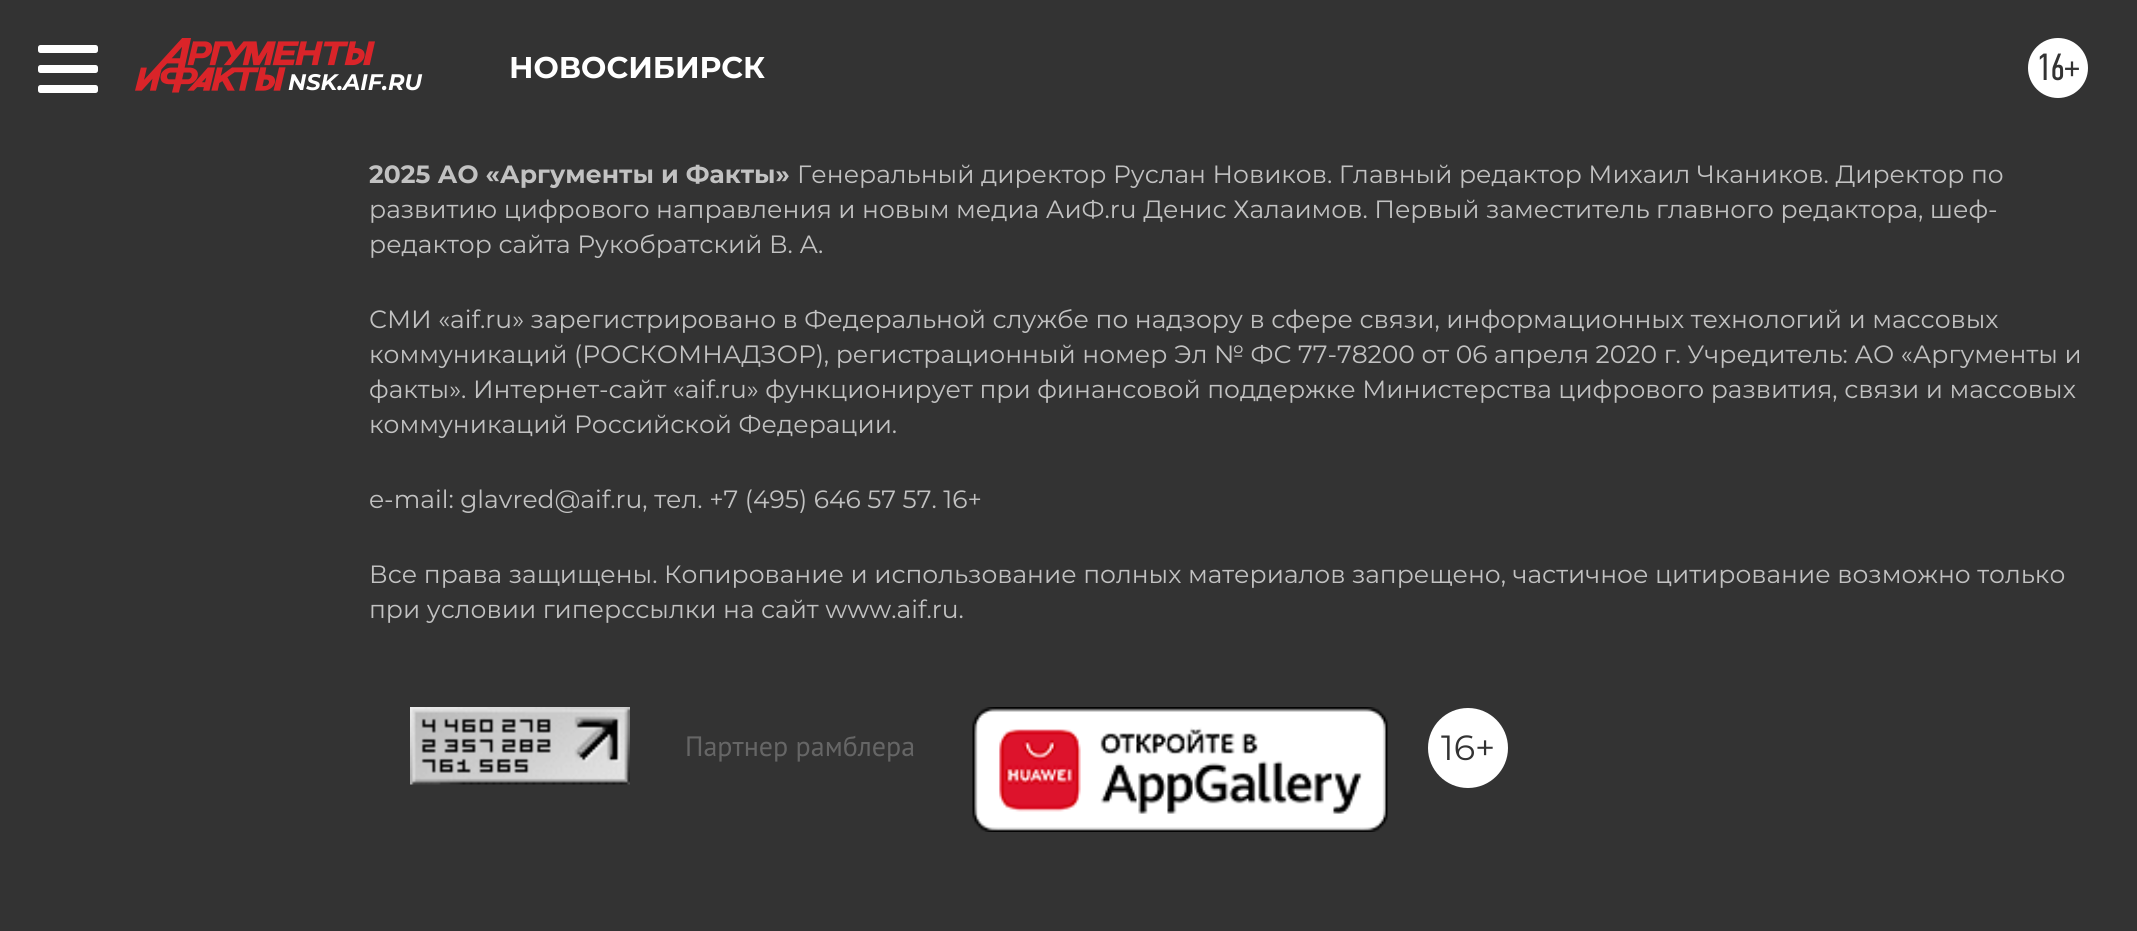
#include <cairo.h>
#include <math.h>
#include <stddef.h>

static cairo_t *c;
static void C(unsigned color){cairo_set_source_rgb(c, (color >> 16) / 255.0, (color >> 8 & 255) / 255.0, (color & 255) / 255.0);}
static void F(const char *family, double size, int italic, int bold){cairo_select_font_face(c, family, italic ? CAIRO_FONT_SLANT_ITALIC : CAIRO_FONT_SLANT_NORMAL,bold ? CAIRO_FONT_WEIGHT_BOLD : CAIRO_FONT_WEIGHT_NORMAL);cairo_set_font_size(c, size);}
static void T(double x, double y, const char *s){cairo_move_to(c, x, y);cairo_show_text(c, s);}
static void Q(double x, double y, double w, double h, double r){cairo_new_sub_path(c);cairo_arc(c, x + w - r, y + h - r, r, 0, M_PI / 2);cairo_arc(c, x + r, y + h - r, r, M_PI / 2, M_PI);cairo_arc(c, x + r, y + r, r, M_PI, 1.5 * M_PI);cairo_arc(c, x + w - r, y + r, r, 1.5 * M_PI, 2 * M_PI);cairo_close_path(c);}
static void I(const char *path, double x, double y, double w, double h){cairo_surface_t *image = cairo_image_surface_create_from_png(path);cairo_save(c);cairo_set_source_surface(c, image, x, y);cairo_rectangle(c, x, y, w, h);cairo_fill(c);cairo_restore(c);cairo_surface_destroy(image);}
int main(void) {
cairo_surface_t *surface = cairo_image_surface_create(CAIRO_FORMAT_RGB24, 2137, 931);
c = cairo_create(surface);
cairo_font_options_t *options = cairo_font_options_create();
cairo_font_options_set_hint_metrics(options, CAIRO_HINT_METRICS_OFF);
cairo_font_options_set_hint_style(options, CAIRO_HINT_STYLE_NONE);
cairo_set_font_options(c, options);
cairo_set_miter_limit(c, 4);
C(0x333333);
cairo_paint(c);
C(0xffffff);
Q(38,45,60,8,2.5);
cairo_fill(c);
Q(38,65,60,8,2.5);
cairo_fill(c);
Q(38,85,60,8,2.5);
cairo_fill(c);
F("Montserrat",30,0,1);
T(509,78,"НОВОСИБИРСК");
cairo_new_path(c);
cairo_arc(c,2058,68,30,0,2 * M_PI);
cairo_fill(c);
F("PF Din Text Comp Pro",38,0,0);
C(0x333333);
T(2036,80,"16+");
I("1.png",135,38,240,55);
F("Montserrat",22.5,1,1);
C(0xffffff);
T(288,90,"NSK.AIF.RU");
F("Montserrat",25,0,1);
C(0xc2c2c2);
T(369,183,"2025 АО «Аргументы и Факты»");
F("Montserrat",25,0,0);
T(797,183,"Генеральный директор Руслан Новиков. Главный редактор Михаил Чкаников. Директор по");
T(369,218,"развитию цифрового направления и новым медиа АиФ.ru Денис Халаимов. Первый заместитель главного редактора, шеф-");
T(369,253,"редактор сайта Рукобратский В. А.");
T(369,328,"СМИ «aif.ru» зарегистрировано в Федеральной службе по надзору в сфере связи, информационных технологий и массовых");
T(369,363,"коммуникаций (РОСКОМНАДЗОР), регистрационный номер Эл № ФС 77-78200 от 06 апреля 2020 г. Учредитель: АО «Аргументы и");
T(369,398,"факты». Интернет-сайт «aif.ru» функционирует при финансовой поддержке Министерства цифрового развития, связи и массовых");
T(369,433,"коммуникаций Российской Федерации.");
T(369,508,"e-mail: glavred@aif.ru, тел. +7 (495) 646 57 57. 16+");
T(369,583,"Все права защищены. Копирование и использование полных материалов запрещено, частичное цитирование возможно только");
T(369,618,"при условии гиперссылки на сайт www.aif.ru.");
I("2.png",410,707,220,78);
F("PT Sans",28,0,0);
C(0x666666);
T(685,756,"Партнер рамблера");
I("3.png",972,707,416,125);
C(0xffffff);
cairo_arc(c,1468,748,40,0,2 * M_PI);
cairo_fill(c);
F("Montserrat",35,0,0);
C(0x333333);
T(1441,760,"16+");
cairo_surface_write_to_png(surface, "o.png");
cairo_font_options_destroy(options);
cairo_destroy(c);
cairo_surface_destroy(surface);
return 0;
}
